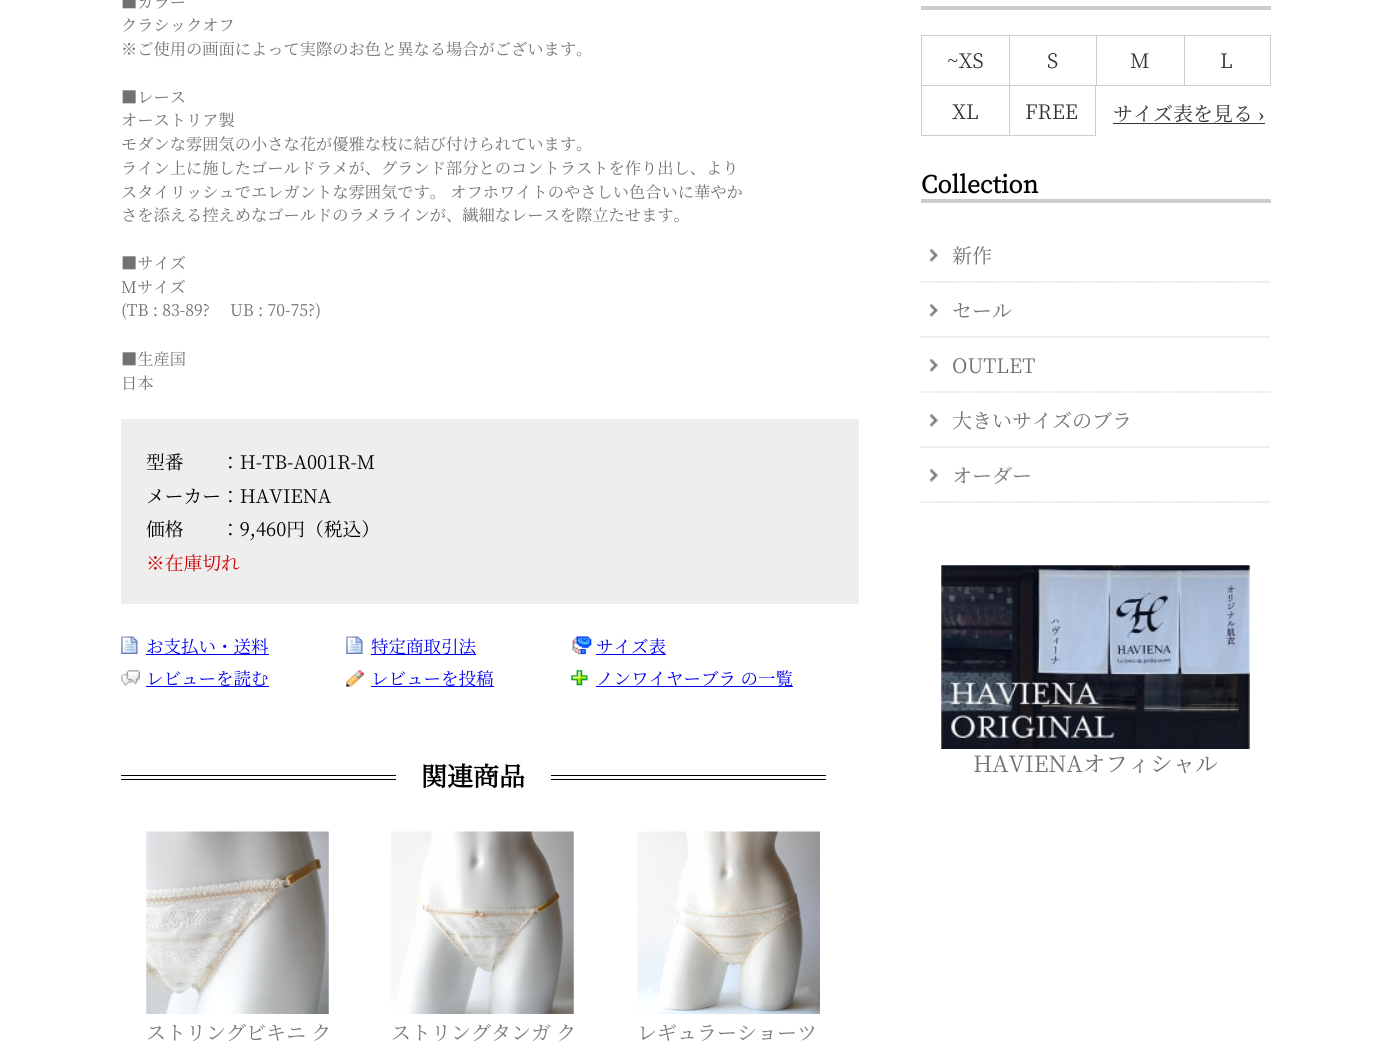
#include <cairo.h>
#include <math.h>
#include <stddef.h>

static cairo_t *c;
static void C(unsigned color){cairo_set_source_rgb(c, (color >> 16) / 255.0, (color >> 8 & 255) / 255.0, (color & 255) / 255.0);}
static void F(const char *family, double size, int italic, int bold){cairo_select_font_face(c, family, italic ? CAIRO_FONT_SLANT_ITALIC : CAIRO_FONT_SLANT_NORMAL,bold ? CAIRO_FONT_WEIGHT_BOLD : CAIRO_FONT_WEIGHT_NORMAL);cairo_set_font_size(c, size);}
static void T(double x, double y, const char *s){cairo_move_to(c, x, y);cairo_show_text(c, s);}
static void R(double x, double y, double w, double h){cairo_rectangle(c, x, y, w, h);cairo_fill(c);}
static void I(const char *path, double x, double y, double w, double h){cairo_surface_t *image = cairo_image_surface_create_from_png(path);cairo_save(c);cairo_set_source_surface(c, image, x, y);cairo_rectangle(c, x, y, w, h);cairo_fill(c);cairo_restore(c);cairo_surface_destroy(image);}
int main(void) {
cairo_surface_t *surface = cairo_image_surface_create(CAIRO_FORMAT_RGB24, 1391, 1054);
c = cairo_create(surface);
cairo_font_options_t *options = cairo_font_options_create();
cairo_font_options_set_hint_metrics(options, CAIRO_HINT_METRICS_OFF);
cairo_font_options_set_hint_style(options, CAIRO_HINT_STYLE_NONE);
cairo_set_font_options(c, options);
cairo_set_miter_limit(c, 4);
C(0xffffff);
cairo_paint(c);
F("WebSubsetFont",16.25,0,0);
C(0x727171);
T(121,8,"■カラー");
T(121,31,"クラシックオフ");
T(121,55,"※ご使用の画面によって実際のお色と異なる場合がございます。");
T(121,103,"■レース");
T(121,126,"オーストリア製");
T(121,150,"モダンな雰囲気の小さな花が優雅な枝に結び付けられています。");
T(121,174,"ライン上に施したゴールドラメが、グランド部分とのコントラストを作り出し、より");
T(121,198,"スタイリッシュでエレガントな雰囲気です。 オフホワイトのやさしい色合いに華やか");
T(121,221,"さを添える控えめなゴールドのラメラインが、繊細なレースを際立たせます。");
T(121,269,"■サイズ");
T(121,293,"Mサイズ");
T(121,316,"(TB : 83-89?");
T(230,316,"UB : 70-75?)");
T(121,365,"■生産国");
T(121,389,"日本");
C(0xeeeeee);
R(121,419,738,185);
F("WebSubsetFont",18.75,0,0);
C(0x000000);
T(146,469,"型番");
T(221,469,"：H-TB-A001R-M");
T(146,503,"メーカー：HAVIENA");
T(146,536,"価格");
T(221,536,"：9,460円（税込）");
C(0xcc0000);
T(146,570,"※在庫切れ");
I("1.png",121,636,17,18);
C(0x0000ee);
R(146,654,123,1);
F("WebSubsetFont",17.5,0,0);
T(146,653,"お支払い・送料");
I("1.png",346,636,17,18);
R(371,654,105,1);
T(371,653,"特定商取引法");
I("2.png",572,636,20,19);
R(596,654,70,1);
T(596,653,"サイズ表");
I("3.png",121,670,19,16);
R(146,686,123,1);
T(146,685,"レビューを読む");
I("4.png",346,670,18,17);
R(371,686,123,1);
T(371,685,"レビューを投稿");
I("5.png",571,670,17,16);
R(596,686,197,1);
T(596,685,"ノンワイヤーブラ の一覧");
C(0x000000);
R(121,775,275,1);
R(121,779,275,1);
F("WebSubsetFont",26,0,1);
T(421,786,"関連商品");
R(551,775,275,1);
R(551,779,275,1);
I("6.png",146,831,183,183);
F("WebSubsetFont",20,0,0);
C(0x797979);
T(146,1040,"ストリングビキニ ク");
I("7.png",391,831,183,183);
T(391,1040,"ストリングタンガ ク");
I("8.png",637,831,183,183);
T(637,1040,"レギュラーショーツ");
C(0xcccccc);
R(921,6,350,4);
R(921,35,350,1);
R(921,85,263,1);
R(921,36,1,50);
C(0x333333);
T(947,68,"~XS");
C(0xcccccc);
R(1009,36,1,50);
C(0x333333);
T(1047,68,"S");
C(0xcccccc);
R(1096,36,1,50);
C(0x333333);
T(1130,68,"M");
C(0xcccccc);
R(1270,36,1,50);
R(1184,85,87,1);
R(1184,36,1,50);
C(0x333333);
T(1220,68,"L");
C(0xcccccc);
R(921,135,88,1);
R(921,86,1,50);
C(0x333333);
T(952,119,"XL");
C(0xcccccc);
R(1095,86,1,50);
R(1009,135,87,1);
R(1009,86,1,50);
C(0x333333);
T(1025,119,"FREE");
T(1113,121,"サイズ表を見る");
F("Liberation Serif",20,0,0);
T(1258,121,"›");
R(1113,123,152,1);
C(0xcccccc);
R(921,199,350,4);
F("WebSubsetFont",23.75,0,1);
C(0x000000);
T(921,193,"Collection");
I("9.png",929,249,9,13);
cairo_new_path(c);
cairo_move_to(c,921,282);
cairo_line_to(c,1271,282);
C(0xcccccc);
cairo_set_line_width(c,1.2);
cairo_set_dash(c,(double[]){1.25,1.25},2,0);
cairo_stroke(c);
F("WebSubsetFont",20,0,0);
C(0x727171);
T(952,263,"新作");
I("9.png",929,304,9,13);
cairo_new_path(c);
cairo_move_to(c,921,337);
cairo_line_to(c,1271,337);
C(0xcccccc);
cairo_stroke(c);
C(0x727171);
T(952,318,"セール");
I("9.png",929,359,9,13);
cairo_new_path(c);
cairo_move_to(c,921,392);
cairo_line_to(c,1271,392);
C(0xcccccc);
cairo_stroke(c);
C(0x727171);
T(952,373,"OUTLET");
I("9.png",929,414,9,13);
cairo_new_path(c);
cairo_move_to(c,921,447);
cairo_line_to(c,1271,447);
C(0xcccccc);
cairo_stroke(c);
C(0x727171);
T(952,428,"大きいサイズのブラ");
I("9.png",929,469,9,13);
cairo_new_path(c);
cairo_move_to(c,921,502);
cairo_line_to(c,1271,502);
C(0xcccccc);
cairo_stroke(c);
C(0x727171);
T(952,483,"オーダー");
I("10.png",941,565,309,184);
F("WebSubsetFont",22.5,0,0);
T(973,772,"HAVIENAオフィシャル");
cairo_surface_write_to_png(surface, "o.png");
cairo_font_options_destroy(options);
cairo_destroy(c);
cairo_surface_destroy(surface);
return 0;
}
